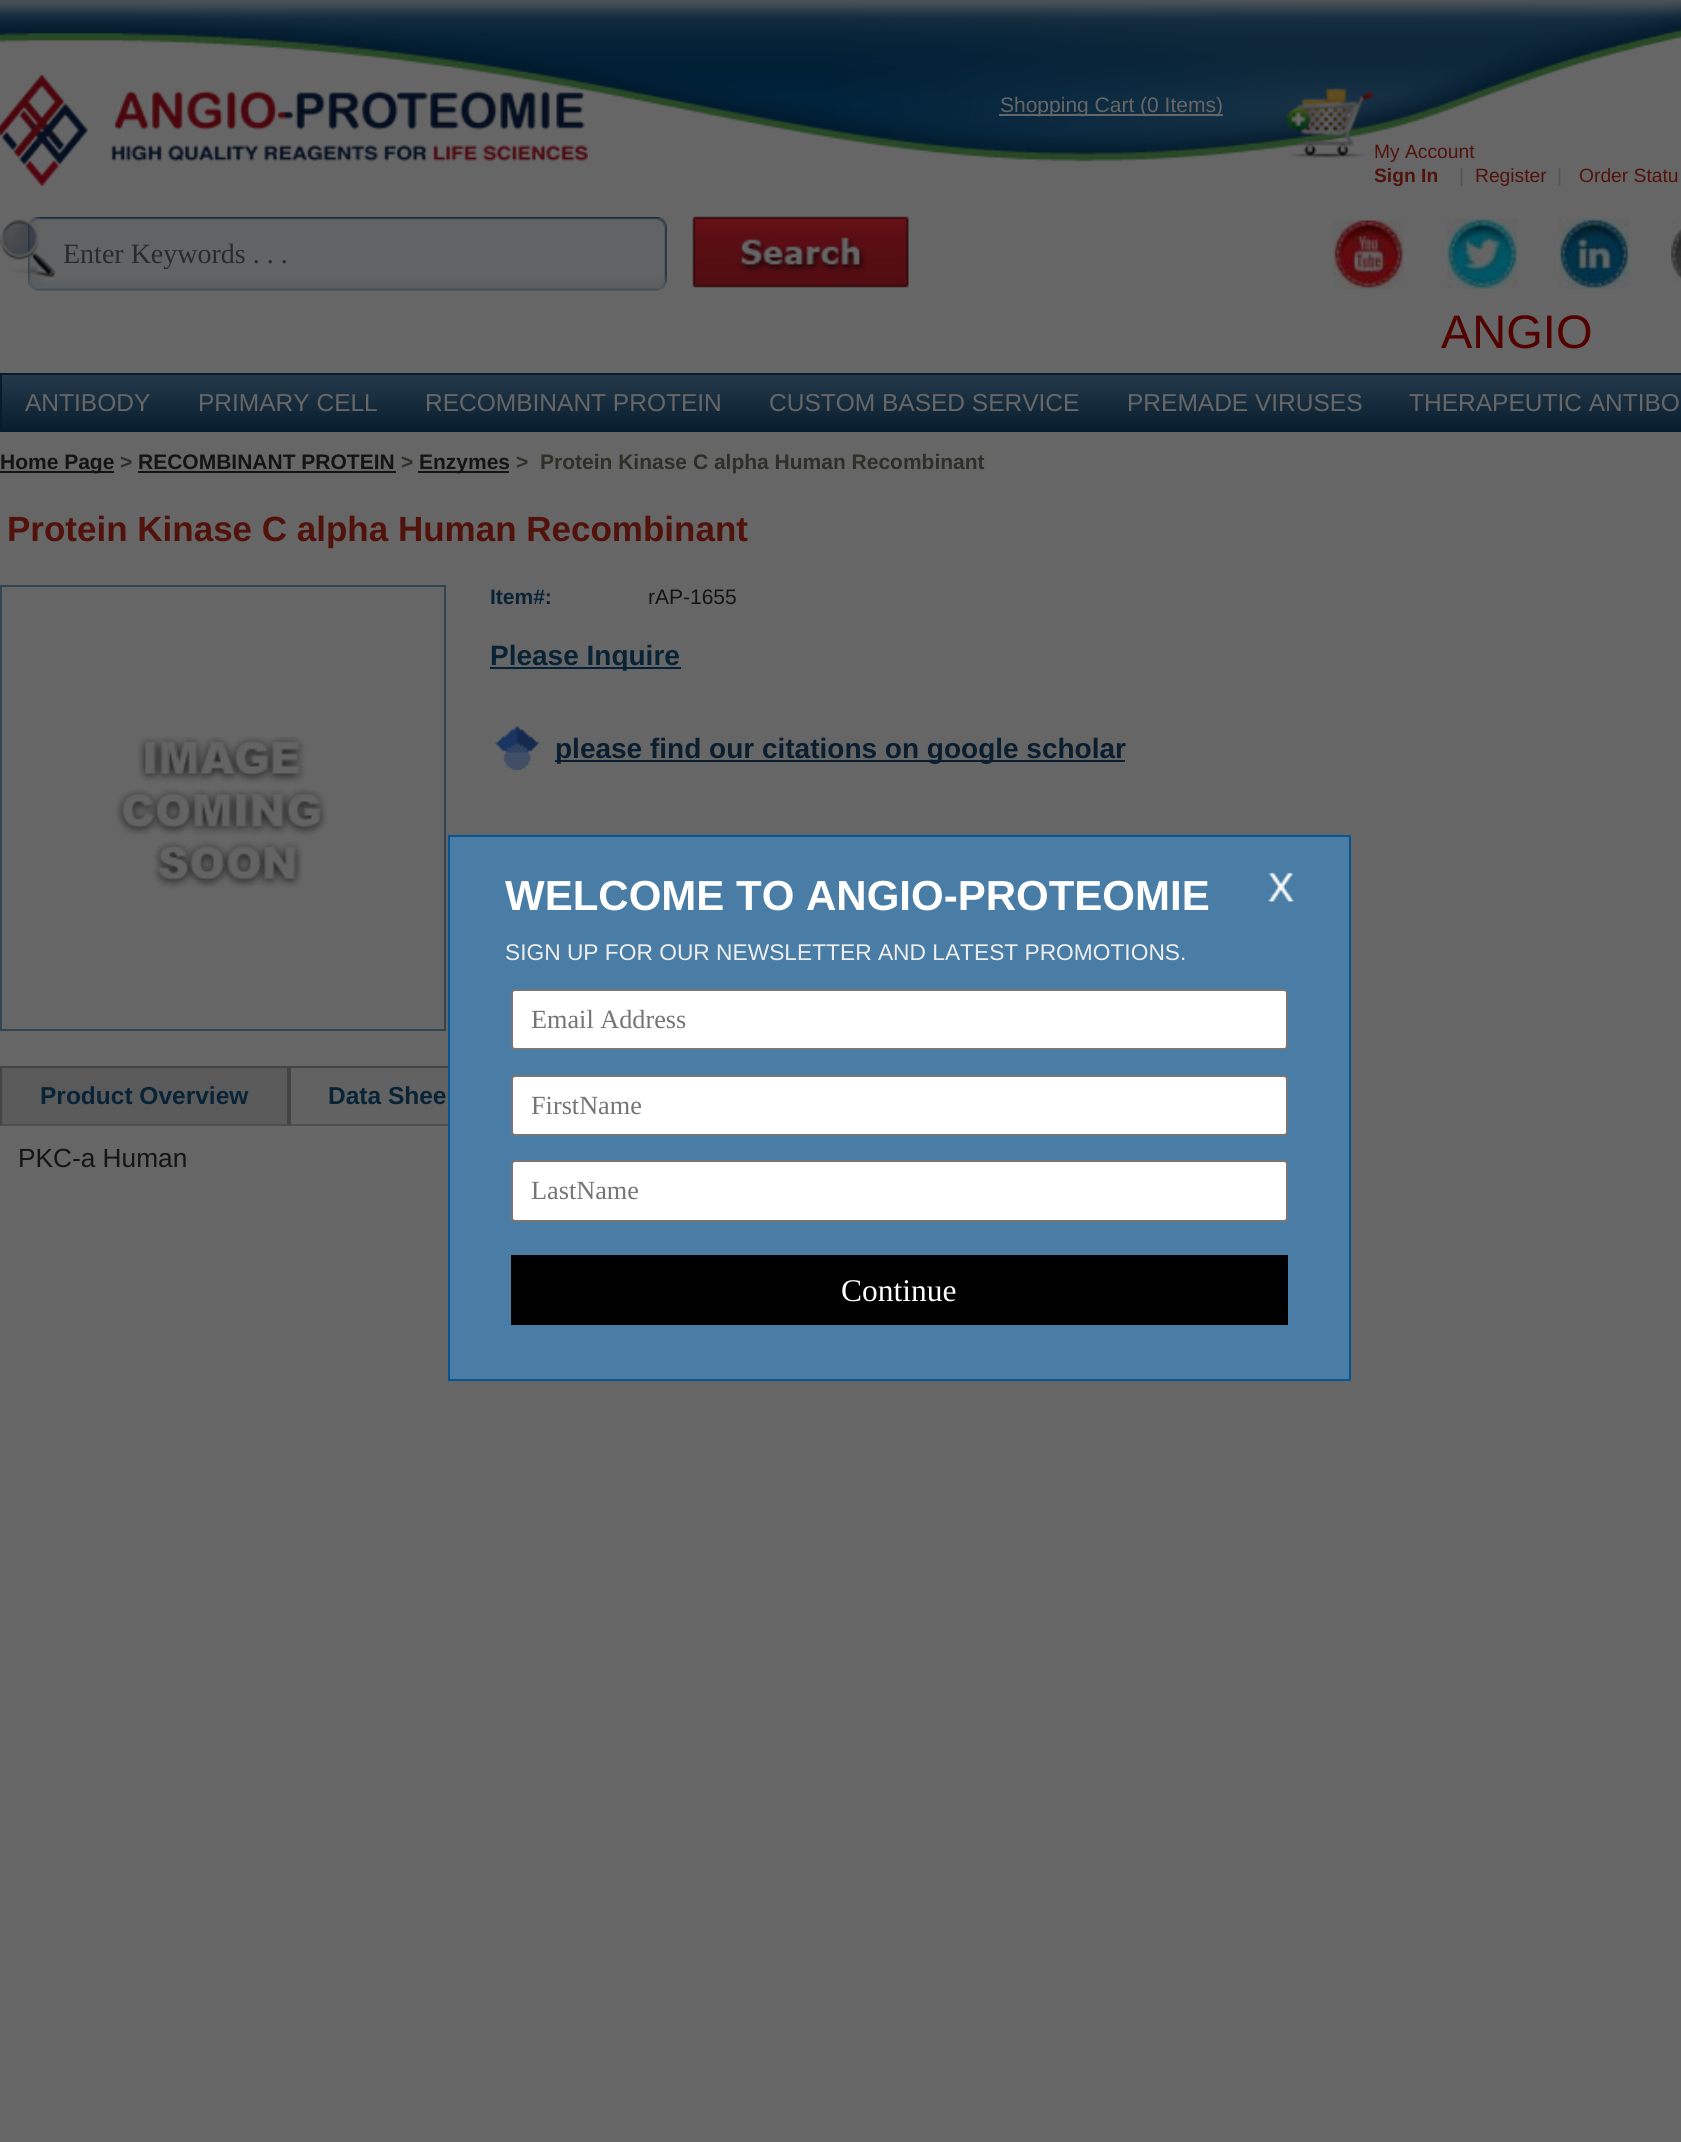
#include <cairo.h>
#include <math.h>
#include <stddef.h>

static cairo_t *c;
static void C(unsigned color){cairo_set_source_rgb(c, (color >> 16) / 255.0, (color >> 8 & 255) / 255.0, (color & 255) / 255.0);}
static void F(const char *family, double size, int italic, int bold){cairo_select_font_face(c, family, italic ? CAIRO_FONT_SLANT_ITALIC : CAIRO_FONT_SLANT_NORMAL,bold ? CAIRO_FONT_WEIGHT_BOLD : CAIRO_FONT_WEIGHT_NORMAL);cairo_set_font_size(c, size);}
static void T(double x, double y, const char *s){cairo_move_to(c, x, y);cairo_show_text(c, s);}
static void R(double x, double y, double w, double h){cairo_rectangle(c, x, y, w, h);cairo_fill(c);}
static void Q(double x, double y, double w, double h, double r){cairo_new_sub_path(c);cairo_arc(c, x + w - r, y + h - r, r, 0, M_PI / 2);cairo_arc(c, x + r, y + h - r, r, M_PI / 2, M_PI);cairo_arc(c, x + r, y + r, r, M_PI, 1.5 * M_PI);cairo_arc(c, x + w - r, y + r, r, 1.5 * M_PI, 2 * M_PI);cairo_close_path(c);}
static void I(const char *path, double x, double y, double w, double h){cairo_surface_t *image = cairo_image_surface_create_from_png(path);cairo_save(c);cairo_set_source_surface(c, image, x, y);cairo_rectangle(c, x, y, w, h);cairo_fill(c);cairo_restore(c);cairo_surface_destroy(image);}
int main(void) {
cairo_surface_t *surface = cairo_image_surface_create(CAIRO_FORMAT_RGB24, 1681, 2142);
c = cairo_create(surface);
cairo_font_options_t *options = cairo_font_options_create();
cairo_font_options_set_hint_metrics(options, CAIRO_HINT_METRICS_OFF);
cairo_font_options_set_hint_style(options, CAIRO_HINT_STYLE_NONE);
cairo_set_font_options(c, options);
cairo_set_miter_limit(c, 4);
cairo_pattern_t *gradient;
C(0x666666);
cairo_paint(c);
I("1.png",0,0,1681,162);
I("2.png",0,75,588,111);
C(0x666666);
R(999,114,224,2);
F("Liberation Sans",21,0,0);
T(1000,112,"Shopping Cart (0 Items)");
I("3.png",1286,87,88,71);
F("Liberation Sans",19.25,0,0);
C(0x51120c);
T(1374,158,"My Account");
F("Liberation Sans",19.25,0,1);
T(1374,182,"Sign In");
F("Liberation Sans",19.25,0,0);
C(0x525252);
T(1459,182,"|");
C(0x51120c);
T(1475,182,"Register");
C(0x525252);
T(1557,182,"|");
C(0x51120c);
T(1579,182,"Order Statu");
I("5.png",28,217,639,74);
I("4.png",0,218,56,60);
F("Liberation Serif",28,0,0);
C(0x292b2b);
T(63,263,"Enter Keywords . . .");
I("6.png",691,215,219,73);
I("7.png",1333,220,71,69);
I("8.png",1447,218,71,71);
I("9.png",1559,218,71,71);
I("10.png",1671,219,10,64);
F("Liberation Sans",47,0,0);
C(0x520000);
T(1441,348,"ANGIO");
gradient = cairo_pattern_create_linear(872,374,872,431);
cairo_pattern_add_color_stop_rgba(gradient,0,0.145,0.227,0.29,1);
cairo_pattern_add_color_stop_rgba(gradient,1,0.031,0.114,0.18,1);
cairo_set_source(c,gradient);
cairo_pattern_destroy(gradient);
R(2,375,1679,55);
cairo_rectangle(c,1,374,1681,57);
C(0x081c2c);
cairo_stroke(c);
F("Liberation Sans",24.5,0,0);
C(0x666666);
T(25,411,"ANTIBODY");
T(198,411,"PRIMARY CELL");
T(425,411,"RECOMBINANT PROTEIN");
T(769,411,"CUSTOM BASED SERVICE");
T(1127,411,"PREMADE VIRUSES");
T(1409,411,"THERAPEUTIC ANTIBO");
C(0x141414);
R(0,471,114,2);
F("Liberation Sans",21,0,1);
T(0,469,"Home Page");
C(0x2f2e27);
T(120,469,">");
C(0x141414);
T(138,469,"RECOMBINANT PROTEIN");
R(138,471,258,2);
C(0x2f2e27);
T(401,469,">");
C(0x141414);
R(418,471,91,2);
T(419,469,"Enzymes");
C(0x2f2e27);
T(516,469,">");
T(540,469,"Protein Kinase C alpha Human Recombinant");
F("Liberation Sans",35,0,1);
C(0x51120c);
T(7,541,"Protein Kinase C alpha Human Recombinant");
cairo_rectangle(c,1,586,444,444);
C(0x334451);
cairo_stroke(c);
I("11.png",116,735,213,154);
F("Liberation Sans",21,0,1);
C(0x092336);
T(490,604,"Item#:");
F("Liberation Sans",21,0,0);
C(0x141414);
T(648,604,"rAP-1655");
C(0x04213b);
R(490,667,191,2);
F("Liberation Sans",28,0,1);
C(0x092336);
T(490,665,"Please Inquire");
I("12.png",495,726,44,44);
C(0x0a1e2f);
R(555,760,570,2);
T(555,758,"please find our citations on google scholar");
C(0x5a5a5a);
R(2,1068,285,56);
C(0x444444);
R(0,1066,448,2);
R(287,1066,2,59);
C(0x504d4d);
R(0,1124,448,2);
C(0x444444);
R(0,1066,2,59);
F("Liberation Sans",24.5,0,1);
C(0x092336);
T(40,1104,"Product Overview");
C(0x626262);
R(291,1068,157,56);
C(0x444444);
R(289,1066,2,59);
C(0x092336);
T(328,1104,"Data Shee");
F("Liberation Sans",26.25,0,0);
C(0x141414);
T(18,1167,"PKC-a Human");
C(0x497da5);
cairo_rectangle(c,449,836,901,544);
cairo_fill_preserve(c);
C(0x08548e);
cairo_stroke(c);
F("Liberation Sans",42,0,1);
C(0xffffff);
T(505,910,"WELCOME TO ANGIO-PROTEOMIE");
F("Liberation Sans",22.75,0,0);
C(0xeeeeee);
T(505,960,"SIGN UP FOR OUR NEWSLETTER AND LATEST PROMOTIONS.");
I("13.png",1268,872,26,30);
C(0xffffff);
Q(512,990,775,59,3);
cairo_fill_preserve(c);
C(0x767676);
cairo_stroke(c);
F("Liberation Serif",26.25,0,0);
C(0x757575);
T(531,1028,"Email Address");
C(0xffffff);
Q(512,1076,775,59,3);
cairo_fill_preserve(c);
C(0x767676);
cairo_stroke(c);
C(0x757575);
T(531,1114,"FirstName");
C(0xffffff);
Q(512,1161,775,60,3);
cairo_fill_preserve(c);
C(0x767676);
cairo_stroke(c);
C(0x757575);
T(531,1199,"LastName");
C(0x000000);
R(511,1255,777,70);
F("Liberation Serif",31.5,0,0);
C(0xffffff);
T(841,1301,"Continue");
cairo_surface_write_to_png(surface, "o.png");
cairo_font_options_destroy(options);
cairo_destroy(c);
cairo_surface_destroy(surface);
return 0;
}
